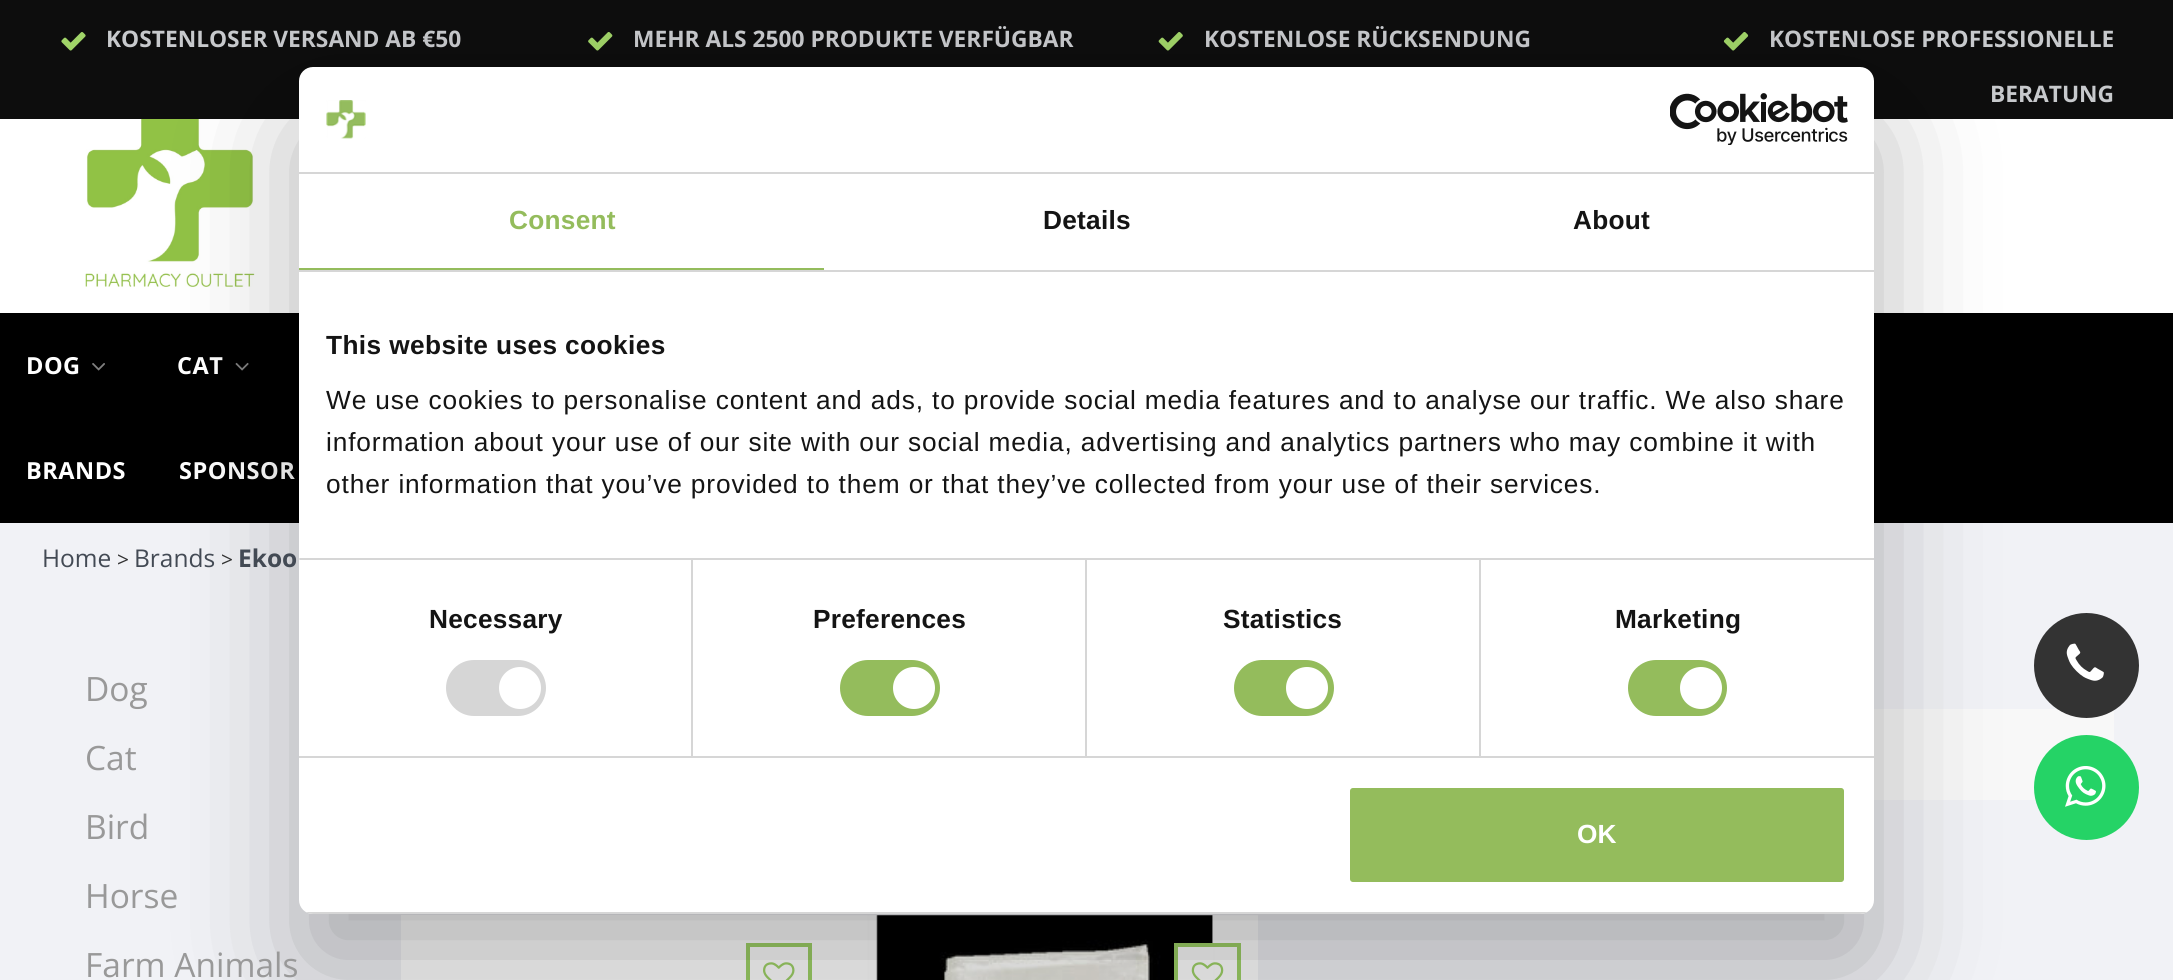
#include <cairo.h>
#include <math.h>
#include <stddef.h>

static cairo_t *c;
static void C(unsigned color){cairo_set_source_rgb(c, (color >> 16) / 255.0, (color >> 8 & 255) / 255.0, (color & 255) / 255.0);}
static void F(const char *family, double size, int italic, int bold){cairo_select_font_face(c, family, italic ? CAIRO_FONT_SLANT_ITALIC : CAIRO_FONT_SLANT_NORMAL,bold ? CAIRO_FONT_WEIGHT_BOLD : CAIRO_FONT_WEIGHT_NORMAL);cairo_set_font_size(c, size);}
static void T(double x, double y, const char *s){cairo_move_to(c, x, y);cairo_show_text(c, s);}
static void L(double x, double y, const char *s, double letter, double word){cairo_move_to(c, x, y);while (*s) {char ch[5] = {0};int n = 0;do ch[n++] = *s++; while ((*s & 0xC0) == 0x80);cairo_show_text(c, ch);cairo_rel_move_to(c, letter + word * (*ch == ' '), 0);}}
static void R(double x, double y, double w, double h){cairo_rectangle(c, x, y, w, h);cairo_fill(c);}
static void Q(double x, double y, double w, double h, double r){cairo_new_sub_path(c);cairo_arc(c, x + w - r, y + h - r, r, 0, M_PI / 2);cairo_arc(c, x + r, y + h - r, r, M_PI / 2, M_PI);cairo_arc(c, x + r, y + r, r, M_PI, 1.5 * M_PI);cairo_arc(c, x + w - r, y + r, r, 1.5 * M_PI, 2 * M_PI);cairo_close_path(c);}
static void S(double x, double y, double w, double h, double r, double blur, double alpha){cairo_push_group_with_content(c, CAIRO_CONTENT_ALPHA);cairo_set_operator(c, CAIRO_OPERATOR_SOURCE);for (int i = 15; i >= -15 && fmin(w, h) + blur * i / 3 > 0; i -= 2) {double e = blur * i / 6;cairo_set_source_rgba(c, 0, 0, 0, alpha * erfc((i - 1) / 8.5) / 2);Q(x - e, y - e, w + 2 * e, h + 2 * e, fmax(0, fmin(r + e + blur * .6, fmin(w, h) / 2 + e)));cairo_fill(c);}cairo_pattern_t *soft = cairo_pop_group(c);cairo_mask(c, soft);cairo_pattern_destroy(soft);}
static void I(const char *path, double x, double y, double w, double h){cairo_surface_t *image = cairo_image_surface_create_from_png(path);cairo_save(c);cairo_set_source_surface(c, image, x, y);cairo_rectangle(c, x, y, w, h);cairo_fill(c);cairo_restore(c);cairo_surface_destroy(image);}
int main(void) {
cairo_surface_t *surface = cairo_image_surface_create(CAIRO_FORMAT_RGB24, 2173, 980);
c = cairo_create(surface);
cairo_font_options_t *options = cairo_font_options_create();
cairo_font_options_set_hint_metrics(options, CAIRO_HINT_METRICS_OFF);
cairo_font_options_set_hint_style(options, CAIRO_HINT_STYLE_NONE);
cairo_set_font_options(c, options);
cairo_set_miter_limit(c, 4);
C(0xf1f2f6);
cairo_paint(c);
C(0x0d0d0d);
R(0,0,2173,119);
I("1.png",61,32,25,19);
F("Open Sans",22.75,0,1);
C(0xc7c9cc);
T(106,47,"KOSTENLOSER VERSAND AB €50");
I("2.png",588,32,25,19);
T(633,47,"MEHR ALS 2500 PRODUKTE VERFÜGBAR");
I("3.png",1158,32,25,19);
T(1204,47,"KOSTENLOSE RÜCKSENDUNG");
I("4.png",1723,32,26,19);
T(1769,47,"KOSTENLOSE PROFESSIONELLE");
T(1990,102,"BERATUNG");
C(0xffffff);
R(0,119,2173,194);
I("5.png",85,119,170,168);
C(0x000000);
R(0,313,2173,210);
F("Open Sans",23.5,0,1);
C(0xffffff);
L(26,374,"DOG",.5,0);
I("6.png",92,363,13,8);
L(177,374,"CAT",.5,0);
I("7.png",235,362,14,9);
L(26,479,"BRANDS",.5,0);
L(179,479,"SPONSOR",.5,0);
C(0xf8f8f8);
R(1874,709,240,91);
C(0x333333);
cairo_new_path(c);
cairo_arc(c,2086.5,665.5,52.5,0,2 * M_PI);
cairo_fill(c);
C(0xffffff);
R(401,915,429,65);
cairo_rectangle(c,748,945,62,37);
C(0x9fd267);
cairo_set_line_width(c,4);
cairo_stroke(c);
I("11.png",763,962,32,18);
I("12.png",830,915,428,65);
C(0xffffff);
R(1178,947,35,33);
cairo_rectangle(c,1176,945,63,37);
C(0x9fd267);
cairo_stroke(c);
I("13.png",1191,962,33,18);
C(0x25d366);
cairo_arc(c,2086.5,787.5,52.5,0,2 * M_PI);
cairo_fill(c);
C(0x000000);
S(299,123,1575,847,14,59.5,.3);
C(0xffffff);
Q(299,67,1575,847,14);
cairo_fill(c);
C(0xd6d6d6);
R(299,172,1575,2);
I("8.png",326,100,40,39);
I("9.png",1670,93,178,52);
R(299,270,1575,2);
C(0x94bc5c);
R(299,268,525,2);
F("Liberation Sans",26.25,0,1);
L(509,229,"Consent",.25,0);
C(0x141414);
L(1043,229,"Details",.25,0);
L(1573,229,"About",.25,0);
C(0xd6d6d6);
R(299,558,1575,2);
C(0x141414);
L(326,354,"This website uses cookies",.4,0);
F("Liberation Sans",26.25,0,0);
L(326,409,"We use cookies to personalise content and ads, to provide social media features and to analyse our traffic. We also share",.88,0);
L(326,451,"information about your use of our site with our social media, advertising and analytics partners who may combine it with",.88,0);
L(326,493,"other information that you’ve provided to them or that they’ve collected from your use of their services.",.88,0);
C(0xd6d6d6);
R(299,756,1575,2);
C(0xe5e5e5);
R(299,558,1,2);
C(0xd6d6d6);
R(691,560,2,196);
F("Liberation Sans",26.25,0,1);
C(0x141414);
L(429,628,"Necessary",.25,0);
C(0xd6d6d6);
Q(446,660,100,56,28);
cairo_fill(c);
C(0xffffff);
cairo_arc(c,520,688,21,0,2 * M_PI);
cairo_fill(c);
C(0xd6d6d6);
R(1085,560,2,196);
C(0x141414);
L(813,628,"Preferences",.25,0);
C(0x94bc5c);
Q(840,660,100,56,28);
cairo_fill(c);
C(0xffffff);
cairo_arc(c,914,688,21,0,2 * M_PI);
cairo_fill(c);
C(0xd6d6d6);
R(1479,560,2,196);
C(0x141414);
L(1223,628,"Statistics",.25,0);
C(0x94bc5c);
Q(1234,660,100,56,28);
cairo_fill(c);
C(0xffffff);
cairo_arc(c,1307,688,21,0,2 * M_PI);
cairo_fill(c);
C(0x141414);
L(1615,628,"Marketing",.25,0);
C(0x94bc5c);
Q(1628,660,99,56,28);
cairo_fill(c);
C(0xffffff);
cairo_arc(c,1701,688,21,0,2 * M_PI);
cairo_fill(c);
cairo_save(c);
Q(299,67,1575,847,14);
cairo_clip(c);
C(0xd6d6d6);
R(299,912,1575,2);
cairo_restore(c);
C(0x94bc5c);
Q(1348,786,498,98,5);
cairo_fill_preserve(c);
C(0xffffff);
cairo_stroke(c);
T(1577,843,"OK");
F("Open Sans",24.5,0,0);
C(0x434a54);
T(42,567,"Home");
F("Open Sans",21,0,0);
C(0x333333);
T(117,567,">");
F("Open Sans",24.5,0,0);
C(0x434a54);
T(134,567,"Brands");
F("Open Sans",21,0,0);
C(0x333333);
T(221,567,">");
F("Open Sans",24.5,0,1);
C(0x434a54);
T(238,567,"Ekoo");
I("10.png",2066,643,38,38);
F("Open Sans",33.5,0,0);
C(0x999999);
T(85,701,"Dog");
T(85,770,"Cat");
T(85,839,"Bird");
T(85,908,"Horse");
T(85,977,"Farm Animals");
I("14.png",2065,766,41,41);
cairo_surface_write_to_png(surface, "o.png");
cairo_font_options_destroy(options);
cairo_destroy(c);
cairo_surface_destroy(surface);
return 0;
}
